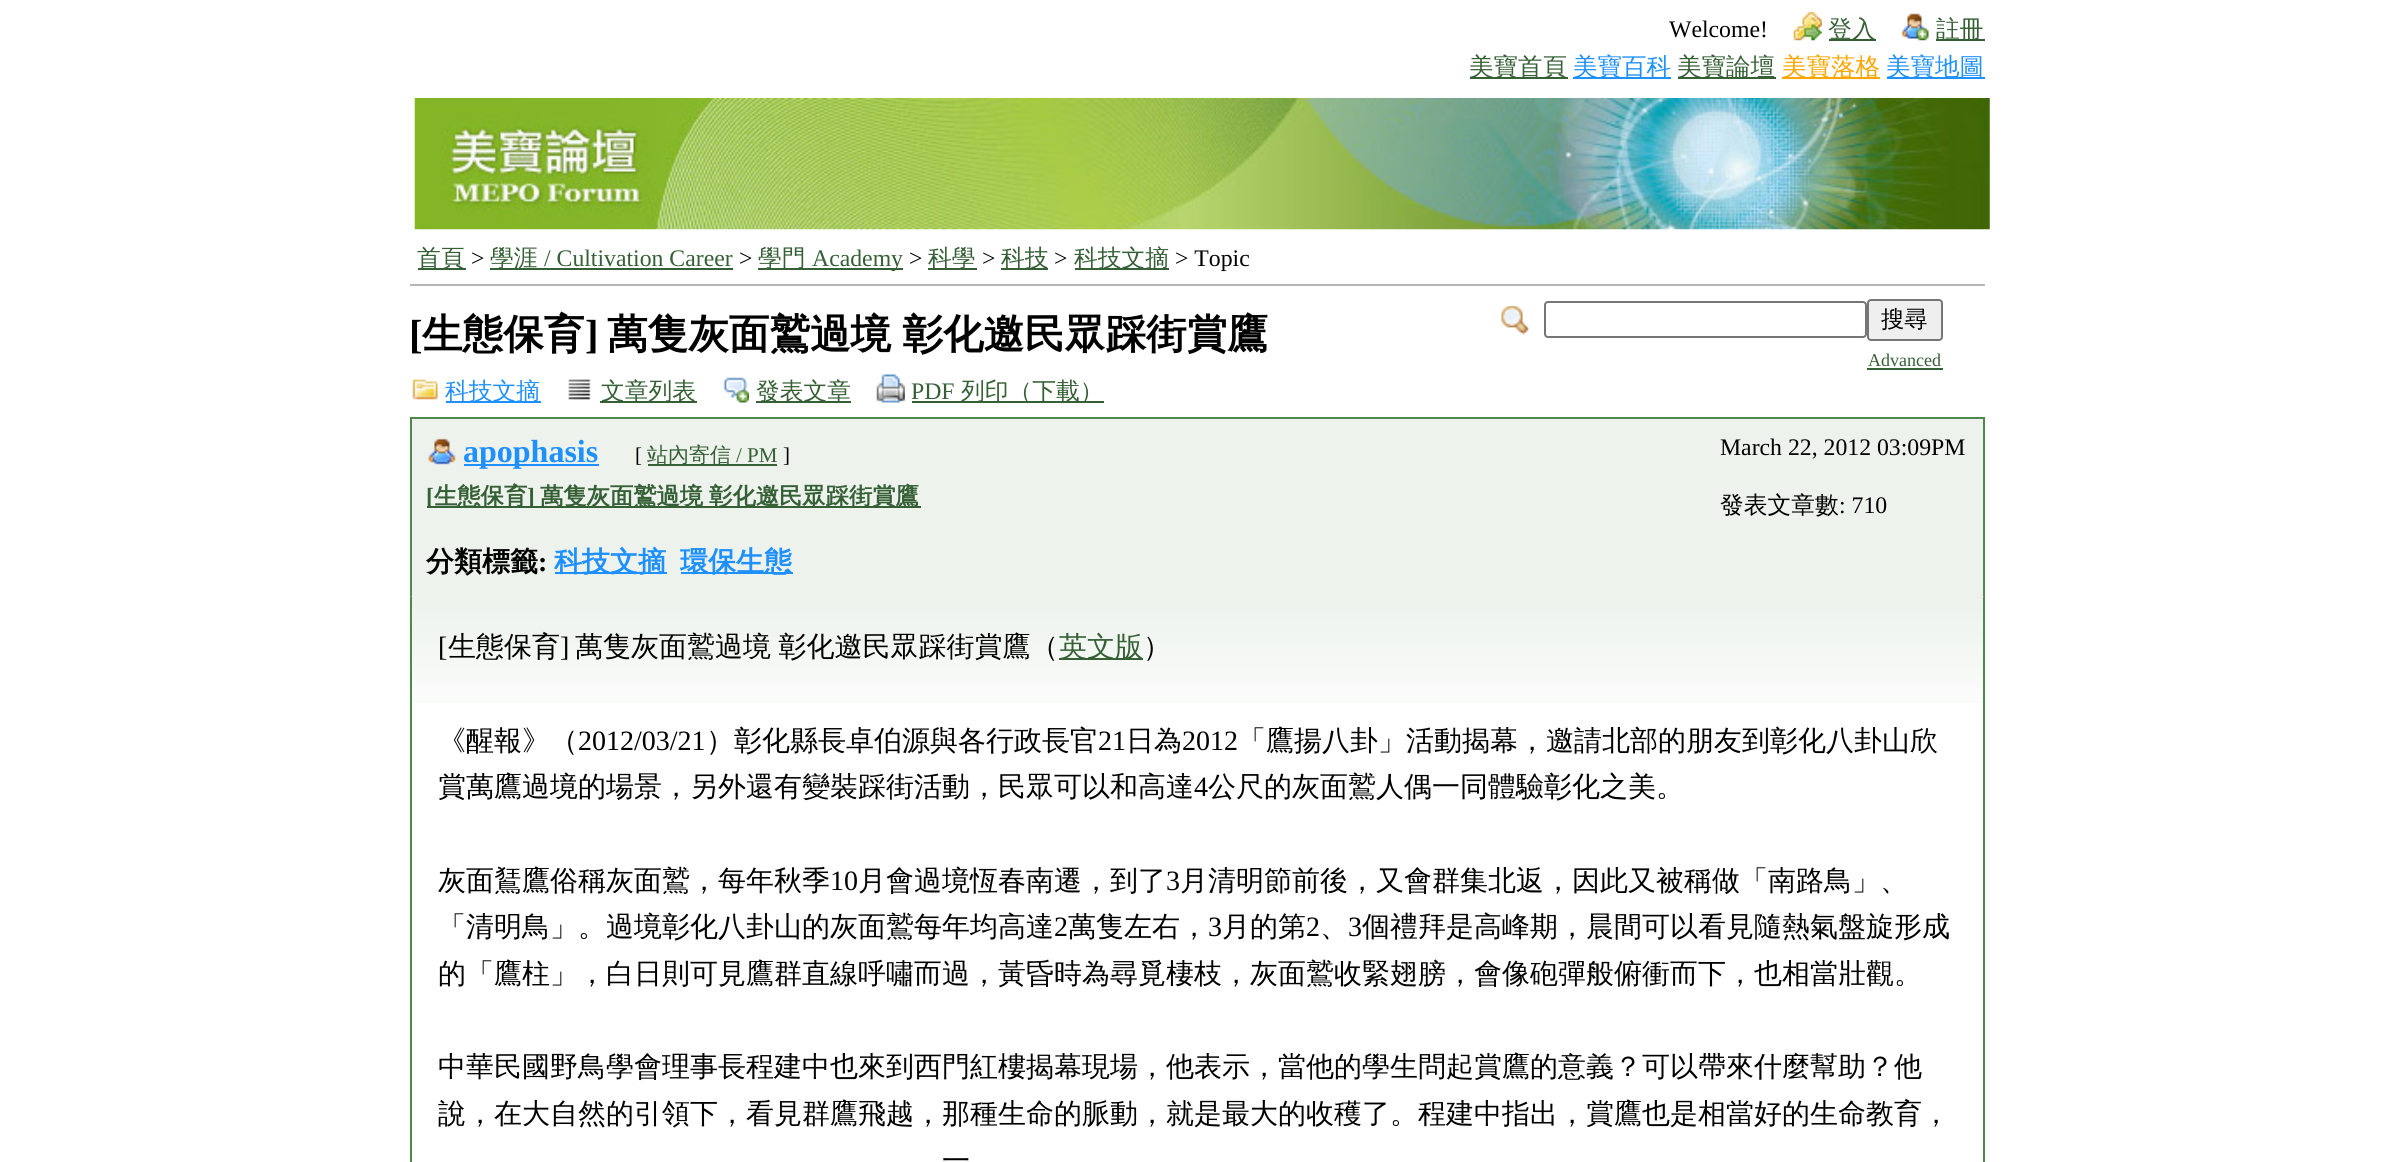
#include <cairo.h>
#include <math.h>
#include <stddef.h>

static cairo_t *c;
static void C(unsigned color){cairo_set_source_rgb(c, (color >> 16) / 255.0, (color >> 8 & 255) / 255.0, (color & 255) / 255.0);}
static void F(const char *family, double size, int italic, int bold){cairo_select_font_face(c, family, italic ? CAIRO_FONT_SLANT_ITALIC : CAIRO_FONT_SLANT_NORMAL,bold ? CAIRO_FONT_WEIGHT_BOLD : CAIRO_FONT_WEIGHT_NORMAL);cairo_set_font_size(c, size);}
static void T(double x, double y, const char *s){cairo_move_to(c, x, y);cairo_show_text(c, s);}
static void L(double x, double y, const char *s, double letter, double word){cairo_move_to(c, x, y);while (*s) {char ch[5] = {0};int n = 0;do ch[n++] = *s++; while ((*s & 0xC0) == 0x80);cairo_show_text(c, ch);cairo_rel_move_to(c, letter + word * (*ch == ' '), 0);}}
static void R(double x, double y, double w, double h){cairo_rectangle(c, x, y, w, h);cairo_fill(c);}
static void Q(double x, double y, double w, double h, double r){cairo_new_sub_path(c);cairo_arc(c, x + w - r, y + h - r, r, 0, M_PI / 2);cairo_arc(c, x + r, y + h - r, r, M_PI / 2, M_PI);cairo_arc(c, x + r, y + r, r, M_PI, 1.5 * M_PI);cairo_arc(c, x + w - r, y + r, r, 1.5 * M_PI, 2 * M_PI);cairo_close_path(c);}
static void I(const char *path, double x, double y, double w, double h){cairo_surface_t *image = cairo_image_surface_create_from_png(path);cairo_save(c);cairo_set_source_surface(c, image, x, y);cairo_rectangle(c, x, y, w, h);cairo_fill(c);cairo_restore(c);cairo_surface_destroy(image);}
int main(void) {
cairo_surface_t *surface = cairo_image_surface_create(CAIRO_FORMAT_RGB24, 2392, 1162);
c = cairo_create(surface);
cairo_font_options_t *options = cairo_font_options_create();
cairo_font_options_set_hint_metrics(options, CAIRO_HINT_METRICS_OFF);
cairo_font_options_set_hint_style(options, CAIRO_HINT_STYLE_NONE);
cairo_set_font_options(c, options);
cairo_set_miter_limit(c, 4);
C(0xffffff);
cairo_paint(c);
F("Liberation Serif",23.75,0,0);
C(0x000000);
T(1669,37,"Welcome!");
I("1.png",1793,12,29,29);
C(0x355f35);
R(1829,39,47,2);
F("WenQuanYi Zen Hei Medium",23.75,0,0);
T(1828,37,"登入");
I("2.png",1901,13,28,28);
R(1936,39,49,2);
T(1936,37,"註冊");
R(1470,77,98,2);
F("WenQuanYi Zen Hei Medium",24.5,0,0);
T(1469,75,"美寶首頁");
C(0x1e90ff);
R(1573,77,98,2);
T(1573,75,"美寶百科");
C(0x355f35);
R(1678,77,98,2);
T(1677,75,"美寶論壇");
C(0xffa500);
R(1782,77,98,2);
T(1782,75,"美寶落格");
C(0x1e90ff);
R(1887,77,98,2);
T(1886,75,"美寶地圖");
I("3.png",414,98,1576,132);
C(0xb6b6b6);
R(410,284,1575,2);
C(0x355f35);
R(418,268,48,2);
F("WenQuanYi Zen Hei Medium",23.75,0,0);
T(417,266,"首頁");
F("Liberation Serif",23.75,0,0);
C(0x000000);
T(471,266,">");
C(0x355f35);
R(490,268,243,2);
F("WenQuanYi Zen Hei Medium",23.75,0,0);
T(490,266,"學涯");
F("Liberation Serif",23.75,0,0);
T(544,266,"/ Cultivation Career");
C(0x000000);
T(739,266,">");
C(0x355f35);
R(758,268,145,2);
F("WenQuanYi Zen Hei Medium",23.75,0,0);
T(758,266,"學門");
F("Liberation Serif",23.75,0,0);
T(812,266,"Academy");
C(0x000000);
T(909,266,">");
C(0x355f35);
R(928,268,49,2);
F("WenQuanYi Zen Hei Medium",23.75,0,0);
T(928,266,"科學");
F("Liberation Serif",23.75,0,0);
C(0x000000);
T(982,266,">");
C(0x355f35);
R(1001,268,47,2);
F("WenQuanYi Zen Hei Medium",23.75,0,0);
T(1001,266,"科技");
F("Liberation Serif",23.75,0,0);
C(0x000000);
T(1054,266,">");
C(0x355f35);
R(1075,268,94,2);
F("WenQuanYi Zen Hei Medium",23.75,0,0);
T(1074,266,"科技文摘");
F("Liberation Serif",23.75,0,0);
C(0x000000);
T(1175,266,"> Topic");
F("Liberation Serif",40.6,0,1);
T(409,348,"[");
F("WenQuanYi Zen Hei",40.6,0,1);
T(422,348,"生態保育");
F("Liberation Serif",40.6,0,1);
T(585,348,"]");
F("WenQuanYi Zen Hei",40.6,0,1);
L(607,348,"萬隻灰面鷲過境 彰化邀民眾踩街賞鷹",0,-1);
I("4.png",1501,306,29,29);
Q(1545,302,321,35,3);
C(0x767676);
cairo_stroke(c);
C(0xefefef);
Q(1868,300,74,40,3);
cairo_fill_preserve(c);
C(0x767676);
cairo_stroke(c);
F("WenQuanYi Zen Hei Medium",23.3,0,0);
C(0x000000);
T(1881,327,"搜尋");
F("Liberation Serif",18,0,0);
C(0x355f35);
T(1868,366,"Advanced");
R(1867,368,76,2);
I("5.png",412,379,26,21);
C(0x1e90ff);
R(446,401,95,2);
F("WenQuanYi Zen Hei Medium",23.75,0,0);
T(445,399,"科技文摘");
I("6.png",568,379,23,21);
C(0x355f35);
R(600,401,97,2);
T(601,399,"文章列表");
I("7.png",722,377,27,26);
R(756,401,95,2);
T(756,399,"發表文章");
I("8.png",876,374,29,29);
F("Liberation Serif",23.75,0,0);
T(911,399,"PDF");
R(912,401,192,2);
F("WenQuanYi Zen Hei Medium",23.75,0,0);
T(961,399,"列印（下載）");
C(0xedf2ed);
R(412,419,1571,178);
C(0x4d894d);
R(410,417,1575,2);
R(1983,417,2,180);
R(410,417,2,180);
I("9.png",428,438,28,27);
C(0x1e90ff);
R(464,464,135,2);
F("Liberation Serif",32,0,1);
T(463,462,"apophasis");
F("Liberation Serif",21,0,0);
C(0x000000);
T(635,462,"[");
C(0x355f35);
R(648,464,129,2);
F("WenQuanYi Zen Hei Medium",21,0,0);
T(647,462,"站內寄信");
F("Liberation Serif",21,0,0);
T(736,462,"/ PM");
C(0x000000);
T(783,462,"]");
C(0x355f35);
R(427,506,494,2);
F("Liberation Serif",23.3,0,1);
T(426,504,"[");
F("WenQuanYi Zen Hei",23.3,0,1);
T(434,504,"生態保育");
F("Liberation Serif",23.3,0,1);
T(527,504,"]");
F("WenQuanYi Zen Hei",23.3,0,1);
L(540,504,"萬隻灰面鷲過境 彰化邀民眾踩街賞鷹",0,-1);
F("WenQuanYi Zen Hei",28,0,1);
C(0x000000);
T(426,571,"分類標籤");
F("Liberation Serif",28,0,1);
T(538,571,":");
C(0x1e90ff);
R(555,572,112,2);
F("WenQuanYi Zen Hei",28,0,1);
T(554,571,"科技文摘");
R(681,572,112,2);
T(680,571,"環保生態");
F("Liberation Serif",23.75,0,0);
C(0x000000);
T(1720,455,"March 22, 2012 03:09PM");
F("WenQuanYi Zen Hei Medium",23.75,0,0);
T(1720,513,"發表文章數");
F("Liberation Serif",23.75,0,0);
T(1839,513,": 710");
I("10.png",409,596,1576,107);
C(0x4d894d);
R(1983,597,2,565);
R(410,597,2,565);
F("Liberation Serif",28,0,0);
C(0x000000);
T(438,656,"[");
F("WenQuanYi Zen Hei Medium",28,0,0);
T(448,656,"生態保育");
F("Liberation Serif",28,0,0);
T(560,656,"]");
F("WenQuanYi Zen Hei Medium",28,0,0);
L(575,656,"萬隻灰面鷲過境 彰化邀民眾踩街賞鷹（",0,-1);
C(0x355f35);
R(1059,658,84,2);
T(1059,656,"英文版");
C(0x000000);
T(1143,656,"）");
T(438,750,"《醒報》（");
F("Liberation Serif",28,0,0);
T(578,750,"2012/03/21");
F("WenQuanYi Zen Hei Medium",28,0,0);
T(706,750,"）彰化縣長卓伯源與各行政長官");
F("Liberation Serif",28,0,0);
T(1098,750,"21");
F("WenQuanYi Zen Hei Medium",28,0,0);
T(1126,750,"日為");
F("Liberation Serif",28,0,0);
T(1182,750,"2012");
F("WenQuanYi Zen Hei Medium",28,0,0);
T(1238,750,"「鷹揚八卦」活動揭幕，邀請北部的朋友到彰化八卦山欣");
T(438,796,"賞萬鷹過境的場景，另外還有變裝踩街活動，民眾可以和高達");
F("Liberation Serif",28,0,0);
T(1194,796,"4");
F("WenQuanYi Zen Hei Medium",28,0,0);
T(1208,796,"公尺的灰面鷲人偶一同體驗彰化之美。");
T(438,890,"灰面鵟鷹俗稱灰面鷲，每年秋季");
F("Liberation Serif",28,0,0);
T(830,890,"10");
F("WenQuanYi Zen Hei Medium",28,0,0);
T(858,890,"月會過境恆春南遷，到了");
F("Liberation Serif",28,0,0);
T(1166,890,"3");
F("WenQuanYi Zen Hei Medium",28,0,0);
T(1180,890,"月清明節前後，又會群集北返，因此又被稱做「南路鳥」、");
T(438,936,"「清明鳥」。過境彰化八卦山的灰面鷲每年均高達");
F("Liberation Serif",28,0,0);
T(1054,936,"2");
F("WenQuanYi Zen Hei Medium",28,0,0);
T(1068,936,"萬隻左右，");
F("Liberation Serif",28,0,0);
T(1208,936,"3");
F("WenQuanYi Zen Hei Medium",28,0,0);
T(1222,936,"月的第");
F("Liberation Serif",28,0,0);
T(1306,936,"2");
F("WenQuanYi Zen Hei Medium",28,0,0);
T(1320,936,"、");
F("Liberation Serif",28,0,0);
T(1348,936,"3");
F("WenQuanYi Zen Hei Medium",28,0,0);
T(1362,936,"個禮拜是高峰期，晨間可以看見隨熱氣盤旋形成");
T(438,983,"的「鷹柱」，白日則可見鷹群直線呼嘯而過，黃昏時為尋覓棲枝，灰面鷲收緊翅膀，會像砲彈般俯衝而下，也相當壯觀。");
T(438,1076,"中華民國野鳥學會理事長程建中也來到西門紅樓揭幕現場，他表示，當他的學生問起賞鷹的意義？可以帶來什麼幫助？他");
T(438,1123,"說，在大自然的引領下，看見群鷹飛越，那種生命的脈動，就是最大的收穫了。程建中指出，賞鷹也是相當好的生命教育，");
T(942,1170,"一");
cairo_surface_write_to_png(surface, "o.png");
cairo_font_options_destroy(options);
cairo_destroy(c);
cairo_surface_destroy(surface);
return 0;
}
